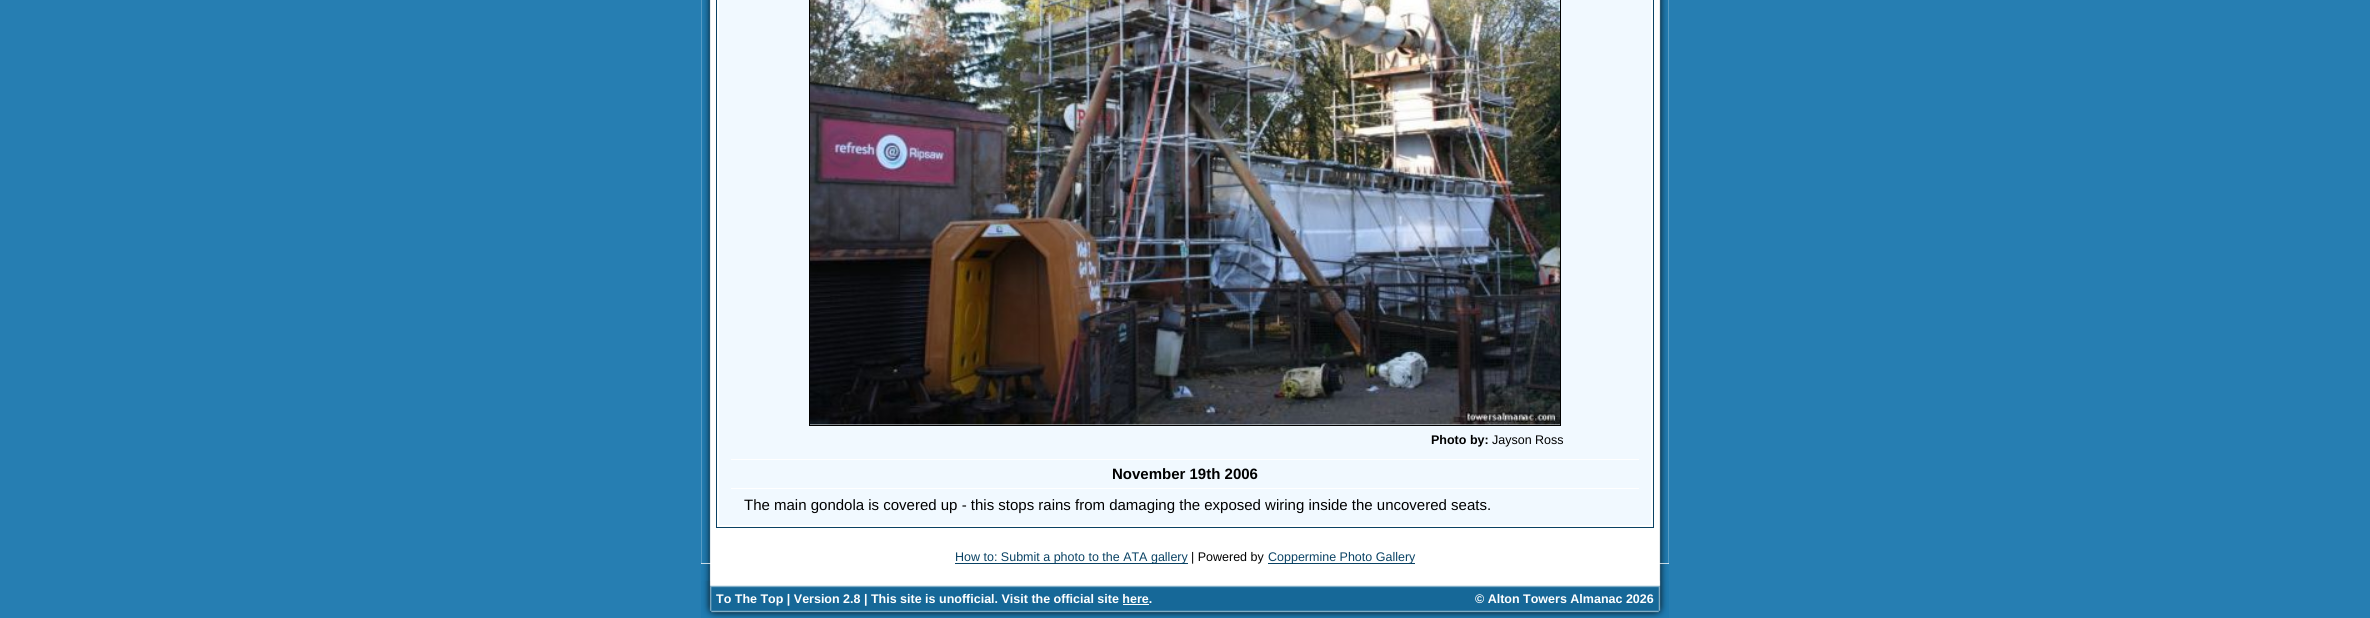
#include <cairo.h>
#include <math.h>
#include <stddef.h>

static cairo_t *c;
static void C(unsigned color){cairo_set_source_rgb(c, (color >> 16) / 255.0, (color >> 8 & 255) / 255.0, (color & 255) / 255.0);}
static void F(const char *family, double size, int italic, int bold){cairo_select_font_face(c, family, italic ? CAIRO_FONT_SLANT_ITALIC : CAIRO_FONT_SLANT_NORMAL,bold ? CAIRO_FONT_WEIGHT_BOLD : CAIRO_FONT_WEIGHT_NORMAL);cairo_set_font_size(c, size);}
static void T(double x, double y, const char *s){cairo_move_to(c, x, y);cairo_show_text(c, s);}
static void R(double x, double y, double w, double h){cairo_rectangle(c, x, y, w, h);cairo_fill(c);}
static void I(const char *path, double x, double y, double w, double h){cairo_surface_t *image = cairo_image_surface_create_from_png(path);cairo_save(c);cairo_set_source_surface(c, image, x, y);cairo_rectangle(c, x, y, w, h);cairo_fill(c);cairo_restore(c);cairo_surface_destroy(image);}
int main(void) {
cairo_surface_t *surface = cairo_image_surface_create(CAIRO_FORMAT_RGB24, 2370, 618);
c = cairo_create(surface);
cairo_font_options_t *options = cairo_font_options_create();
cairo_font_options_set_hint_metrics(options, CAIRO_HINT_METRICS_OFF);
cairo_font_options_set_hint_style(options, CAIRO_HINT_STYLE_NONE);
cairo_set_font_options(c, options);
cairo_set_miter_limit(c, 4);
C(0x267eb2);
cairo_paint(c);
I("1.png",701,564,968,54);
C(0xffffff);
R(701,0,968,564);
I("2.png",701,0,968,564);
cairo_rectangle(c,716.5,-.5,937,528);
C(0x094264);
cairo_set_line_width(c,1);
cairo_stroke(c);
C(0xf1f9ff);
R(719,0,932,525);
cairo_rectangle(c,809.5,-.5,751,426);
C(0x000000);
cairo_stroke(c);
I("3.png",810,0,750,425);
F("Liberation Sans",12.5,0,1);
T(1431,444,"Photo by:");
F("Liberation Sans",12.5,0,0);
T(1492,444,"Jayson Ross");
C(0xffffff);
R(731,459,908,1);
F("Liberation Sans",15,0,1);
C(0x000000);
T(1112,479,"November 19th 2006");
C(0xffffff);
R(731,488,908,1);
F("Liberation Sans",15,0,0);
C(0x000000);
T(744,510,"The main gondola is covered up - this stops rains from damaging the exposed wiring inside the uncovered seats.");
C(0x094264);
R(955,563,233,1);
F("Liberation Sans",12.5,0,0);
T(955,561,"How to: Submit a photo to the ATA gallery");
C(0x000000);
T(1191,561,"| Powered by");
C(0x094264);
R(1268,563,147,1);
T(1268,561,"Coppermine Photo Gallery");
I("4.png",701,580,968,38);
F("Liberation Sans",12.5,0,1);
C(0xffffff);
T(716,603,"To The Top | Version 2.8 | This site is unofficial. Visit the official site here.");
R(1123,604,26,1);
T(1475,603,"© Alton Towers Almanac 2026");
cairo_surface_write_to_png(surface, "o.png");
cairo_font_options_destroy(options);
cairo_destroy(c);
cairo_surface_destroy(surface);
return 0;
}
